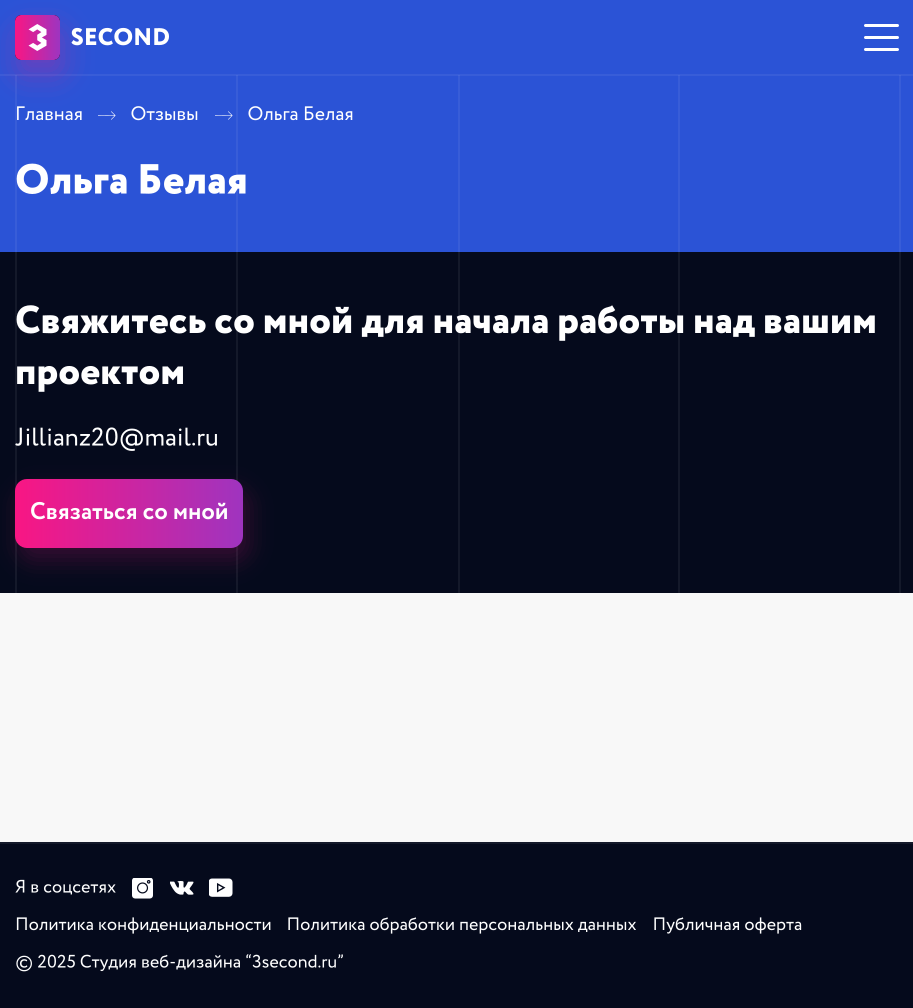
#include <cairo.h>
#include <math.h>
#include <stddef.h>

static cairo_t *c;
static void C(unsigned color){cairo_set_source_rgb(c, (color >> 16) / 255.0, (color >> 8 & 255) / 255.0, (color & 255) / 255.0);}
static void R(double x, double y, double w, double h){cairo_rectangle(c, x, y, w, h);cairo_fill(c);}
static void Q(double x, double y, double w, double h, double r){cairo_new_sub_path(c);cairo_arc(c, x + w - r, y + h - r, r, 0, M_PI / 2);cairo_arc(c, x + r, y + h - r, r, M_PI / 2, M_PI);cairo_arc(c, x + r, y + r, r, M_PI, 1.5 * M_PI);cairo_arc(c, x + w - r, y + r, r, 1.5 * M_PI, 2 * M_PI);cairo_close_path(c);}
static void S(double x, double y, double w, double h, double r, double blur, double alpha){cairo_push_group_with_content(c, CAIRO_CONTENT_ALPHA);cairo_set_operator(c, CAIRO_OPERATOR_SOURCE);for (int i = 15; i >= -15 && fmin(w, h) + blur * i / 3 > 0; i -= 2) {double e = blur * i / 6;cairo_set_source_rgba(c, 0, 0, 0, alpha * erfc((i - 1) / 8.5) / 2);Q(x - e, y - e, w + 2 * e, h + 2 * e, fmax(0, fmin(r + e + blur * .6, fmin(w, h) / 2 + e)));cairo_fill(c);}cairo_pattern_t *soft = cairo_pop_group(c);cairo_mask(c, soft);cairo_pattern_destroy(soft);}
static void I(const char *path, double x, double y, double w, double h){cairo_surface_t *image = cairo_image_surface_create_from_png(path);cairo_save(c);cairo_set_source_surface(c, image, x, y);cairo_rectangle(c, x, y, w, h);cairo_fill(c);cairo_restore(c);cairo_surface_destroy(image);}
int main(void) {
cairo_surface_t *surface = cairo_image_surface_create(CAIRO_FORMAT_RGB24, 913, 1008);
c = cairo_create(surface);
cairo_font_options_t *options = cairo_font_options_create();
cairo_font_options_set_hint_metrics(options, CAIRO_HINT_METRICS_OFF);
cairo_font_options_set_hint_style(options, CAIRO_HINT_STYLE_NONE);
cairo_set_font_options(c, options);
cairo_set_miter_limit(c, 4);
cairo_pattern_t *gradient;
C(0xf8f8f8);
cairo_paint(c);
C(0x2b53d6);
R(0,0,913,74);
R(0,76,913,176);
C(0x385dd8);
R(0,74,913,2);
R(15,75,2,177);
C(0x4467da);
R(15,75,2,1);
I("3.png",17,106,65,15);
I("4.png",98,111,18,9);
C(0xf81684);
S(18,30,45,45,6,15,.3);
I("1.png",15,15,45,45);
I("2.png",71,27,98,19);
C(0xffffff);
Q(864,24,35,3,1.5);
cairo_fill(c);
Q(864,36,35,3,1.5);
cairo_fill(c);
Q(864,48,35,3,1.5);
cairo_fill(c);
C(0x385dd8);
R(236,75,2,177);
C(0x4467da);
R(236,75,2,1);
C(0x385dd8);
R(458,75,2,177);
C(0x4467da);
R(458,75,2,1);
C(0x385dd8);
R(678,75,2,177);
C(0x4467da);
R(678,75,2,1);
C(0x385dd8);
R(899,75,2,177);
C(0x4467da);
R(899,75,2,1);
I("5.png",131,106,67,15);
I("4.png",215,111,18,9);
I("6.png",248,106,105,15);
I("7.png",16,163,230,31);
C(0x050a1c);
R(0,252,913,341);
C(0x14192a);
R(15,252,2,341);
R(236,252,2,341);
R(458,252,2,341);
R(678,252,2,341);
R(899,252,2,341);
I("8.png",16,305,336,29);
I("9.png",361,305,323,36);
I("10.png",695,315,180,22);
I("11.png",17,366,166,26);
I("12.png",15,427,202,24);
C(0xf81684);
S(20,491,228,69,12,12,.2);
gradient = cairo_pattern_create_linear(15,513,243,513);
cairo_pattern_add_color_stop_rgba(gradient,0,0.976,0.086,0.514,1);
cairo_pattern_add_color_stop_rgba(gradient,1,0.624,0.204,0.749,1);
cairo_set_source(c,gradient);
cairo_pattern_destroy(gradient);
Q(15,479,228,69,12);
cairo_fill(c);
I("13.png",31,501,196,19);
C(0x050a1c);
R(0,844,913,164);
C(0x14192a);
R(0,842,913,2);
I("14.png",15,879,101,16);
I("15.png",132,878,21,21);
I("16.png",170,881,24,14);
I("17.png",209,878,24,19);
I("18.png",16,917,255,17);
I("19.png",288,917,348,17);
I("20.png",654,917,148,17);
I("21.png",16,954,327,18);
cairo_surface_write_to_png(surface, "o.png");
cairo_font_options_destroy(options);
cairo_destroy(c);
cairo_surface_destroy(surface);
return 0;
}
